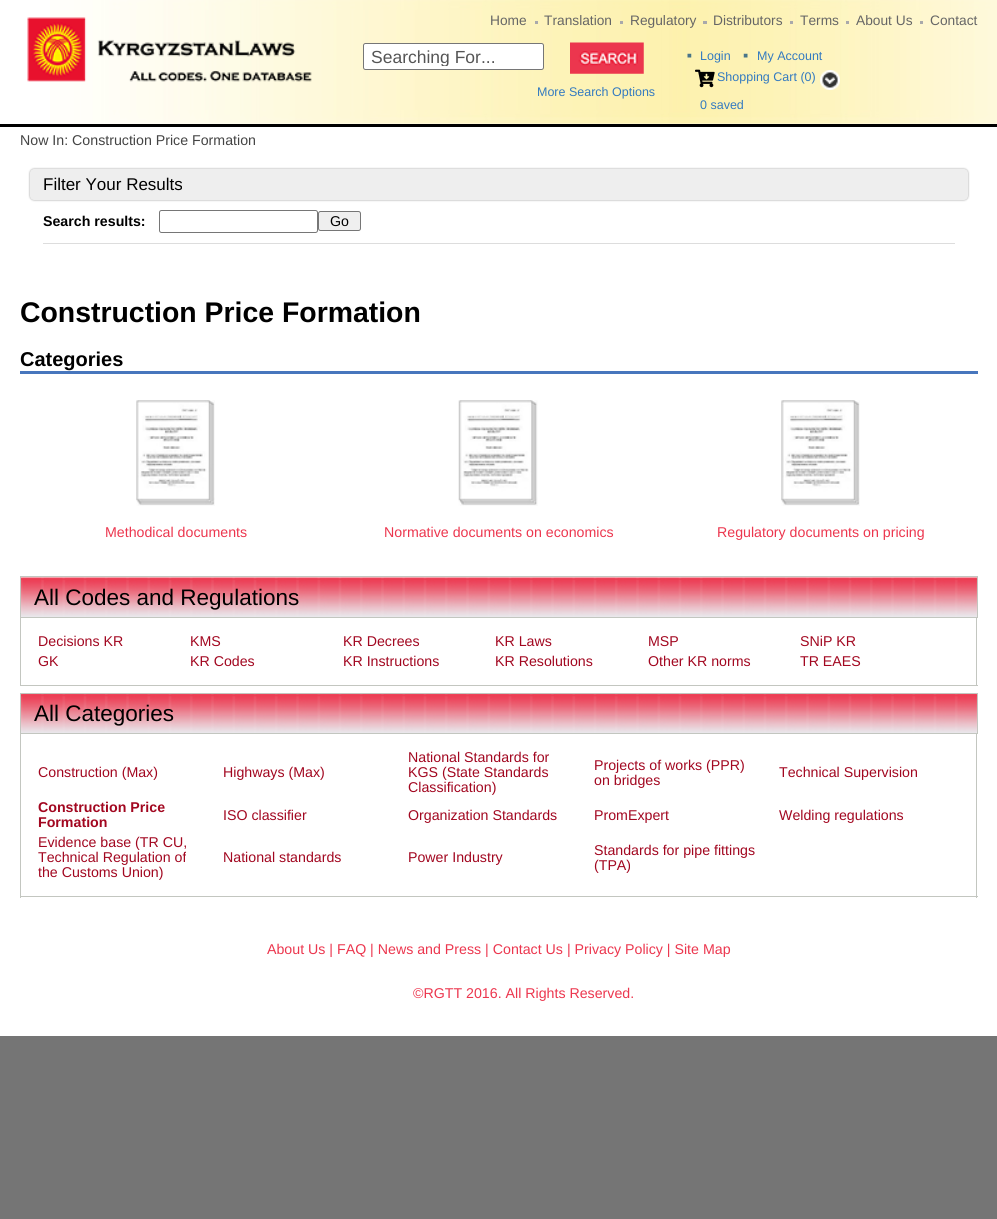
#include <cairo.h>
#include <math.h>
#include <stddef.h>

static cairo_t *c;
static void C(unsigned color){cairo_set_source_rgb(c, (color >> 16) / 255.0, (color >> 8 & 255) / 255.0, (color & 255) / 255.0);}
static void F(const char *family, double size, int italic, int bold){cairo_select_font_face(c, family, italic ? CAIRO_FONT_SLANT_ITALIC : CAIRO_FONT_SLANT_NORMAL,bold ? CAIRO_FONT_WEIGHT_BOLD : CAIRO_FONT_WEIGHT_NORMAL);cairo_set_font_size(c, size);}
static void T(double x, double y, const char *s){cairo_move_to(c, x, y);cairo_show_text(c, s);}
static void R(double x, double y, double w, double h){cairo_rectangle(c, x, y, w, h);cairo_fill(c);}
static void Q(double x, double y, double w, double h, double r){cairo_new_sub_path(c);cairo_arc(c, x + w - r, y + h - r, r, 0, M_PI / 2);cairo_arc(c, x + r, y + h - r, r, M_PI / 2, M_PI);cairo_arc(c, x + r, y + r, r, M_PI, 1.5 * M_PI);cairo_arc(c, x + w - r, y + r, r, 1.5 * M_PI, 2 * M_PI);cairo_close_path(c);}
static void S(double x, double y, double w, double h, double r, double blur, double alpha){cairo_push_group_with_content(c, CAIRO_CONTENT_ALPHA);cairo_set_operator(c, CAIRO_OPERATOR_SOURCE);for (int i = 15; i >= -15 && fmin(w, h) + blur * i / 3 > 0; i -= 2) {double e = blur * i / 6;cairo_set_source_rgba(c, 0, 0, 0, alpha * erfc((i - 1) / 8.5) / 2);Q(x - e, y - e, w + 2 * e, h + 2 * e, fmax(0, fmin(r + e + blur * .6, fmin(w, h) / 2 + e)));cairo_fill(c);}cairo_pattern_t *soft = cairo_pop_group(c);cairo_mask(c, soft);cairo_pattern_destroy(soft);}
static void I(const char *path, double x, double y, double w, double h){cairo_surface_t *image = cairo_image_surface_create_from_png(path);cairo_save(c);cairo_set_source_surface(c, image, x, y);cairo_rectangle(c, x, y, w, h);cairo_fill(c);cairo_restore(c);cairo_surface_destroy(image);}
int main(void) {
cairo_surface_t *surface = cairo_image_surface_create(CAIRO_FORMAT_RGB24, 997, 1219);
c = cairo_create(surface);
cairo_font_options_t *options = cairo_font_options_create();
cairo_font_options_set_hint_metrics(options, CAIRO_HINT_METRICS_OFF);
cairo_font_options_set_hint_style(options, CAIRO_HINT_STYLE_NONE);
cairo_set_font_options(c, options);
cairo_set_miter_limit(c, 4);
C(0x757575);
cairo_paint(c);
C(0xffffff);
R(0,0,997,1036);
I("1.png",50,0,947,124);
I("2.png",27,17,285,65);
F("Liberation Sans",13.75,0,0);
C(0x666666);
T(490,25,"Home");
C(0xa9a9ab);
R(535,21,3,3);
C(0x666666);
T(544,25,"Translation");
C(0xa9a9ab);
R(620,21,3,3);
C(0x666666);
T(630,25,"Regulatory");
C(0xa9a9ab);
R(703,21,4,3);
C(0x666666);
T(713,25,"Distributors");
C(0xa9a9ab);
R(790,21,3,3);
C(0x666666);
T(800,25,"Terms");
C(0xa9a9ab);
R(846,21,3,3);
C(0x666666);
T(856,25,"About Us");
C(0xa9a9ab);
R(920,21,3,3);
C(0x666666);
T(930,25,"Contact");
C(0xffffff);
Q(363.5,43.5,180,26,2);
cairo_fill_preserve(c);
C(0x767676);
cairo_set_line_width(c,1);
cairo_stroke(c);
cairo_save(c);
cairo_rectangle(c,371,46,168,20);
cairo_clip(c);
F("Liberation Sans",17.5,0,0);
C(0x555555);
T(371,63,"Searching For...");
cairo_restore(c);
I("3.png",570,42,74,32);
F("Liberation Sans",12.5,0,0);
C(0x337ac0);
T(537,96,"More Search Options");
I("4.png",687,53,5,5);
T(700,60,"Login");
I("5.png",743,53,5,5);
T(757,60,"My Account");
I("6.png",695,69,20,19);
T(717,81,"Shopping Cart (0)");
I("7.png",820,70,20,20);
T(700,109,"0 saved");
C(0x000000);
R(0,124,997,3);
F("Liberation Sans",14.2,0,0);
C(0x444444);
T(20,145,"Now In: Construction Price Formation");
C(0x000000);
S(30,169,938,31,4,1,.4);
C(0xeeeeee);
Q(30,169,938,31,4);
cairo_fill(c);
F("Liberation Sans",17,0,0);
C(0x000000);
T(43,190,"Filter Your Results");
C(0xdddddd);
R(43,243,912,1);
F("Liberation Sans",14.2,0,1);
C(0x000000);
T(43,226,"Search results:");
Q(159.5,210.5,158,22,2);
C(0x767676);
cairo_stroke(c);
C(0xefefef);
Q(318.5,211.5,42,19,2);
cairo_fill_preserve(c);
C(0x767676);
cairo_stroke(c);
F("Liberation Sans",14.2,0,0);
C(0x000000);
T(330,226,"Go");
F("Liberation Sans",28.4,0,1);
T(20,322,"Construction Price Formation");
C(0x4776bd);
R(20,371,958,3);
F("Liberation Sans",20,0,1);
C(0x000000);
T(20,366,"Categories");
I("8.png",136,400,79,106);
F("Liberation Sans",14.2,0,0);
C(0xec364e);
T(105,537,"Methodical documents");
I("9.png",458,400,80,106);
T(384,537,"Normative documents on economics");
I("10.png",781,400,79,106);
T(717,537,"Regulatory documents on pricing");
I("11.png",21,577,956,40);
cairo_rectangle(c,20.5,576.5,957,41);
C(0xc3c6c0);
cairo_stroke(c);
F("Liberation Sans",22.5,0,0);
C(0x000000);
T(34,605,"All Codes and Regulations");
C(0xc3c6c0);
R(976,618,1,68);
R(20,685,958,1);
R(20,618,1,68);
F("Liberation Sans",14.2,0,0);
C(0xa20720);
T(38,646,"Decisions KR");
T(190,646,"KMS");
T(343,646,"KR Decrees");
T(495,646,"KR Laws");
T(648,646,"MSP");
T(800,646,"SNiP KR");
T(38,666,"GK");
T(190,666,"KR Codes");
T(343,666,"KR Instructions");
T(495,666,"KR Resolutions");
T(648,666,"Other KR norms");
T(800,666,"TR EAES");
I("12.png",21,694,956,39);
cairo_rectangle(c,20.5,693.5,957,40);
C(0xc3c6c0);
cairo_stroke(c);
F("Liberation Sans",22.5,0,0);
C(0x000000);
T(34,721,"All Categories");
C(0xc3c6c0);
R(976,734,1,164);
R(20,896,958,1);
R(20,734,1,164);
F("Liberation Sans",14.2,0,0);
C(0xa20720);
T(38,777,"Construction (Max)");
T(223,777,"Highways (Max)");
T(408,762,"National Standards for");
T(408,777,"KGS (State Standards");
T(408,792,"Classification)");
T(594,770,"Projects of works (PPR)");
T(594,785,"on bridges");
T(779,777,"Technical Supervision");
F("Liberation Sans",14.2,0,1);
T(38,812,"Construction Price");
T(38,827,"Formation");
F("Liberation Sans",14.2,0,0);
T(223,820,"ISO classifier");
T(408,820,"Organization Standards");
T(594,820,"PromExpert");
T(779,820,"Welding regulations");
T(38,847,"Evidence base (TR CU,");
T(38,862,"Technical Regulation of");
T(38,877,"the Customs Union)");
T(223,862,"National standards");
T(408,862,"Power Industry");
T(594,855,"Standards for pipe fittings");
T(594,870,"(TPA)");
C(0xec364e);
T(267,954,"About Us | FAQ | News and Press | Contact Us | Privacy Policy | Site Map");
T(413,998,"©RGTT 2016. All Rights Reserved.");
cairo_surface_write_to_png(surface, "o.png");
cairo_font_options_destroy(options);
cairo_destroy(c);
cairo_surface_destroy(surface);
return 0;
}
